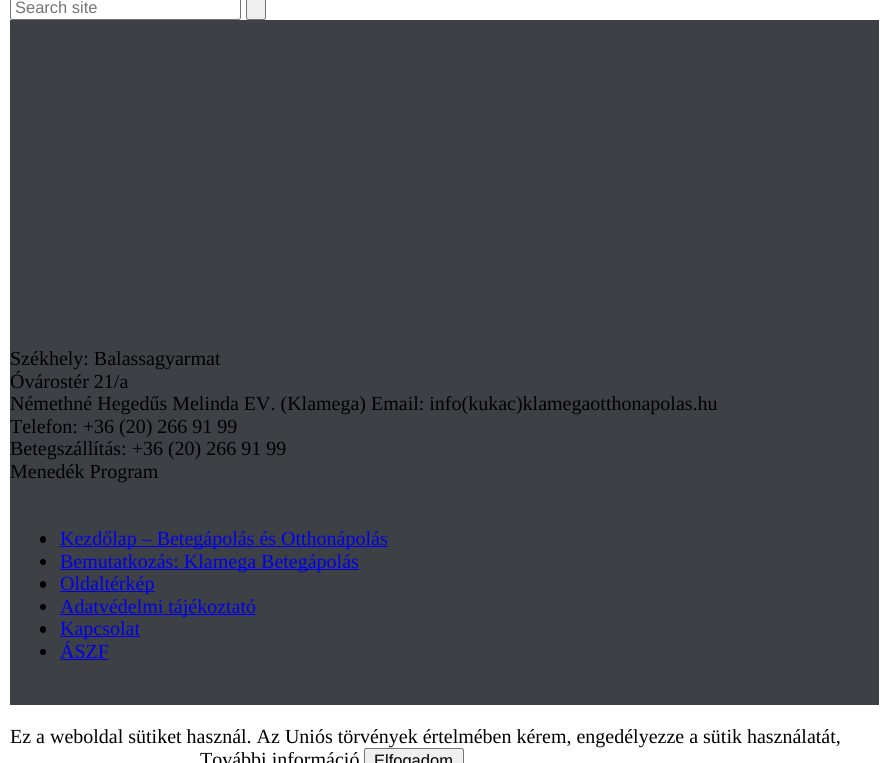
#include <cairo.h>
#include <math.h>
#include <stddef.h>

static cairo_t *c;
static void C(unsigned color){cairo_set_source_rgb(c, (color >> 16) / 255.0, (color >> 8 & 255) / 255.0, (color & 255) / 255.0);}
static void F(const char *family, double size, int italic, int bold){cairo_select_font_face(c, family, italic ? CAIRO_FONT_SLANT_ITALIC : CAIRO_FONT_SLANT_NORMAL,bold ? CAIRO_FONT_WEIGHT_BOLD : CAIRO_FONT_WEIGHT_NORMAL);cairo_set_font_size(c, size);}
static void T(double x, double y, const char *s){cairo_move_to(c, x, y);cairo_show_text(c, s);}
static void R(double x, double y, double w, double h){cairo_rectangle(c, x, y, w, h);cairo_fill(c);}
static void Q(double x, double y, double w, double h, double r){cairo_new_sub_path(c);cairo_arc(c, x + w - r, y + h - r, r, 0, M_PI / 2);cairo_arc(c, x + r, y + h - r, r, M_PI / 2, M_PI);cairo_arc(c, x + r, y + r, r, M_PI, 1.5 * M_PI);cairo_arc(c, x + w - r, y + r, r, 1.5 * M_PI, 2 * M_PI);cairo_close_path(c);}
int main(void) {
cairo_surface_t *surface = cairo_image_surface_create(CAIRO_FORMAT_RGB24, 888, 763);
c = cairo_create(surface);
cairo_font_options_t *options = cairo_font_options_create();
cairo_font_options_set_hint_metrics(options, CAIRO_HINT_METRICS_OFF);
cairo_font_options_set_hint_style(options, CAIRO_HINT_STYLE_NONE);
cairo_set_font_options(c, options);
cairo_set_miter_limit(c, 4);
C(0xffffff);
cairo_paint(c);
Q(10.5,-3.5,230,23,2);
C(0x767676);
cairo_set_line_width(c,1);
cairo_stroke(c);
F("Liberation Sans",16.5,0,0);
C(0x757575);
T(15,13,"Search site");
C(0xefefef);
Q(246.5,-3.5,19,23,2);
cairo_fill_preserve(c);
C(0x767676);
cairo_stroke(c);
C(0x3d4045);
R(10,20,869,685);
F("Liberation Serif",20,0,0);
C(0x000000);
T(10,365,"Székhely: Balassagyarmat");
T(10,388,"Óvárostér 21/a");
T(10,410,"Némethné Hegedűs Melinda EV. (Klamega) Email: info(kukac)klamegaotthonapolas.hu");
T(10,433,"Telefon: +36 (20) 266 91 99");
T(10,455,"Betegszállítás: +36 (20) 266 91 99");
T(10,478,"Menedék Program");
Q(40,536,6,7,3);
cairo_fill(c);
C(0x0000ee);
R(60,546,328,1);
T(60,545,"Kezdőlap – Betegápolás és Otthonápolás");
C(0x000000);
cairo_new_path(c);
cairo_arc(c,43,562,3,0,2 * M_PI);
cairo_fill(c);
C(0x0000ee);
R(60,569,299,1);
T(60,568,"Bemutatkozás: Klamega Betegápolás");
C(0x000000);
Q(40,581,6,7,3);
cairo_fill(c);
C(0x0000ee);
R(60,591,95,1);
T(60,590,"Oldaltérkép");
C(0x000000);
cairo_new_path(c);
cairo_arc(c,43,607,3,0,2 * M_PI);
cairo_fill(c);
C(0x0000ee);
R(60,614,196,1);
T(60,613,"Adatvédelmi tájékoztató");
C(0x000000);
Q(40,626,6,7,3);
cairo_fill(c);
C(0x0000ee);
R(60,636,80,1);
T(60,635,"Kapcsolat");
C(0x000000);
cairo_new_path(c);
cairo_arc(c,43,652,3,0,2 * M_PI);
cairo_fill(c);
C(0x0000ee);
T(60,658,"ÁSZF");
R(60,659,49,1);
C(0x000000);
T(10,743,"Ez a weboldal sütiket használ. Az Uniós törvények értelmében kérem, engedélyezze a sütik használatát,");
T(200,766,"További információ");
C(0xefefef);
Q(364.5,748.5,99,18,2);
cairo_fill_preserve(c);
C(0x767676);
cairo_stroke(c);
F("Liberation Sans",16.5,0,0);
C(0x000000);
T(374,766,"Elfogadom");
cairo_surface_write_to_png(surface, "o.png");
cairo_font_options_destroy(options);
cairo_destroy(c);
cairo_surface_destroy(surface);
return 0;
}
